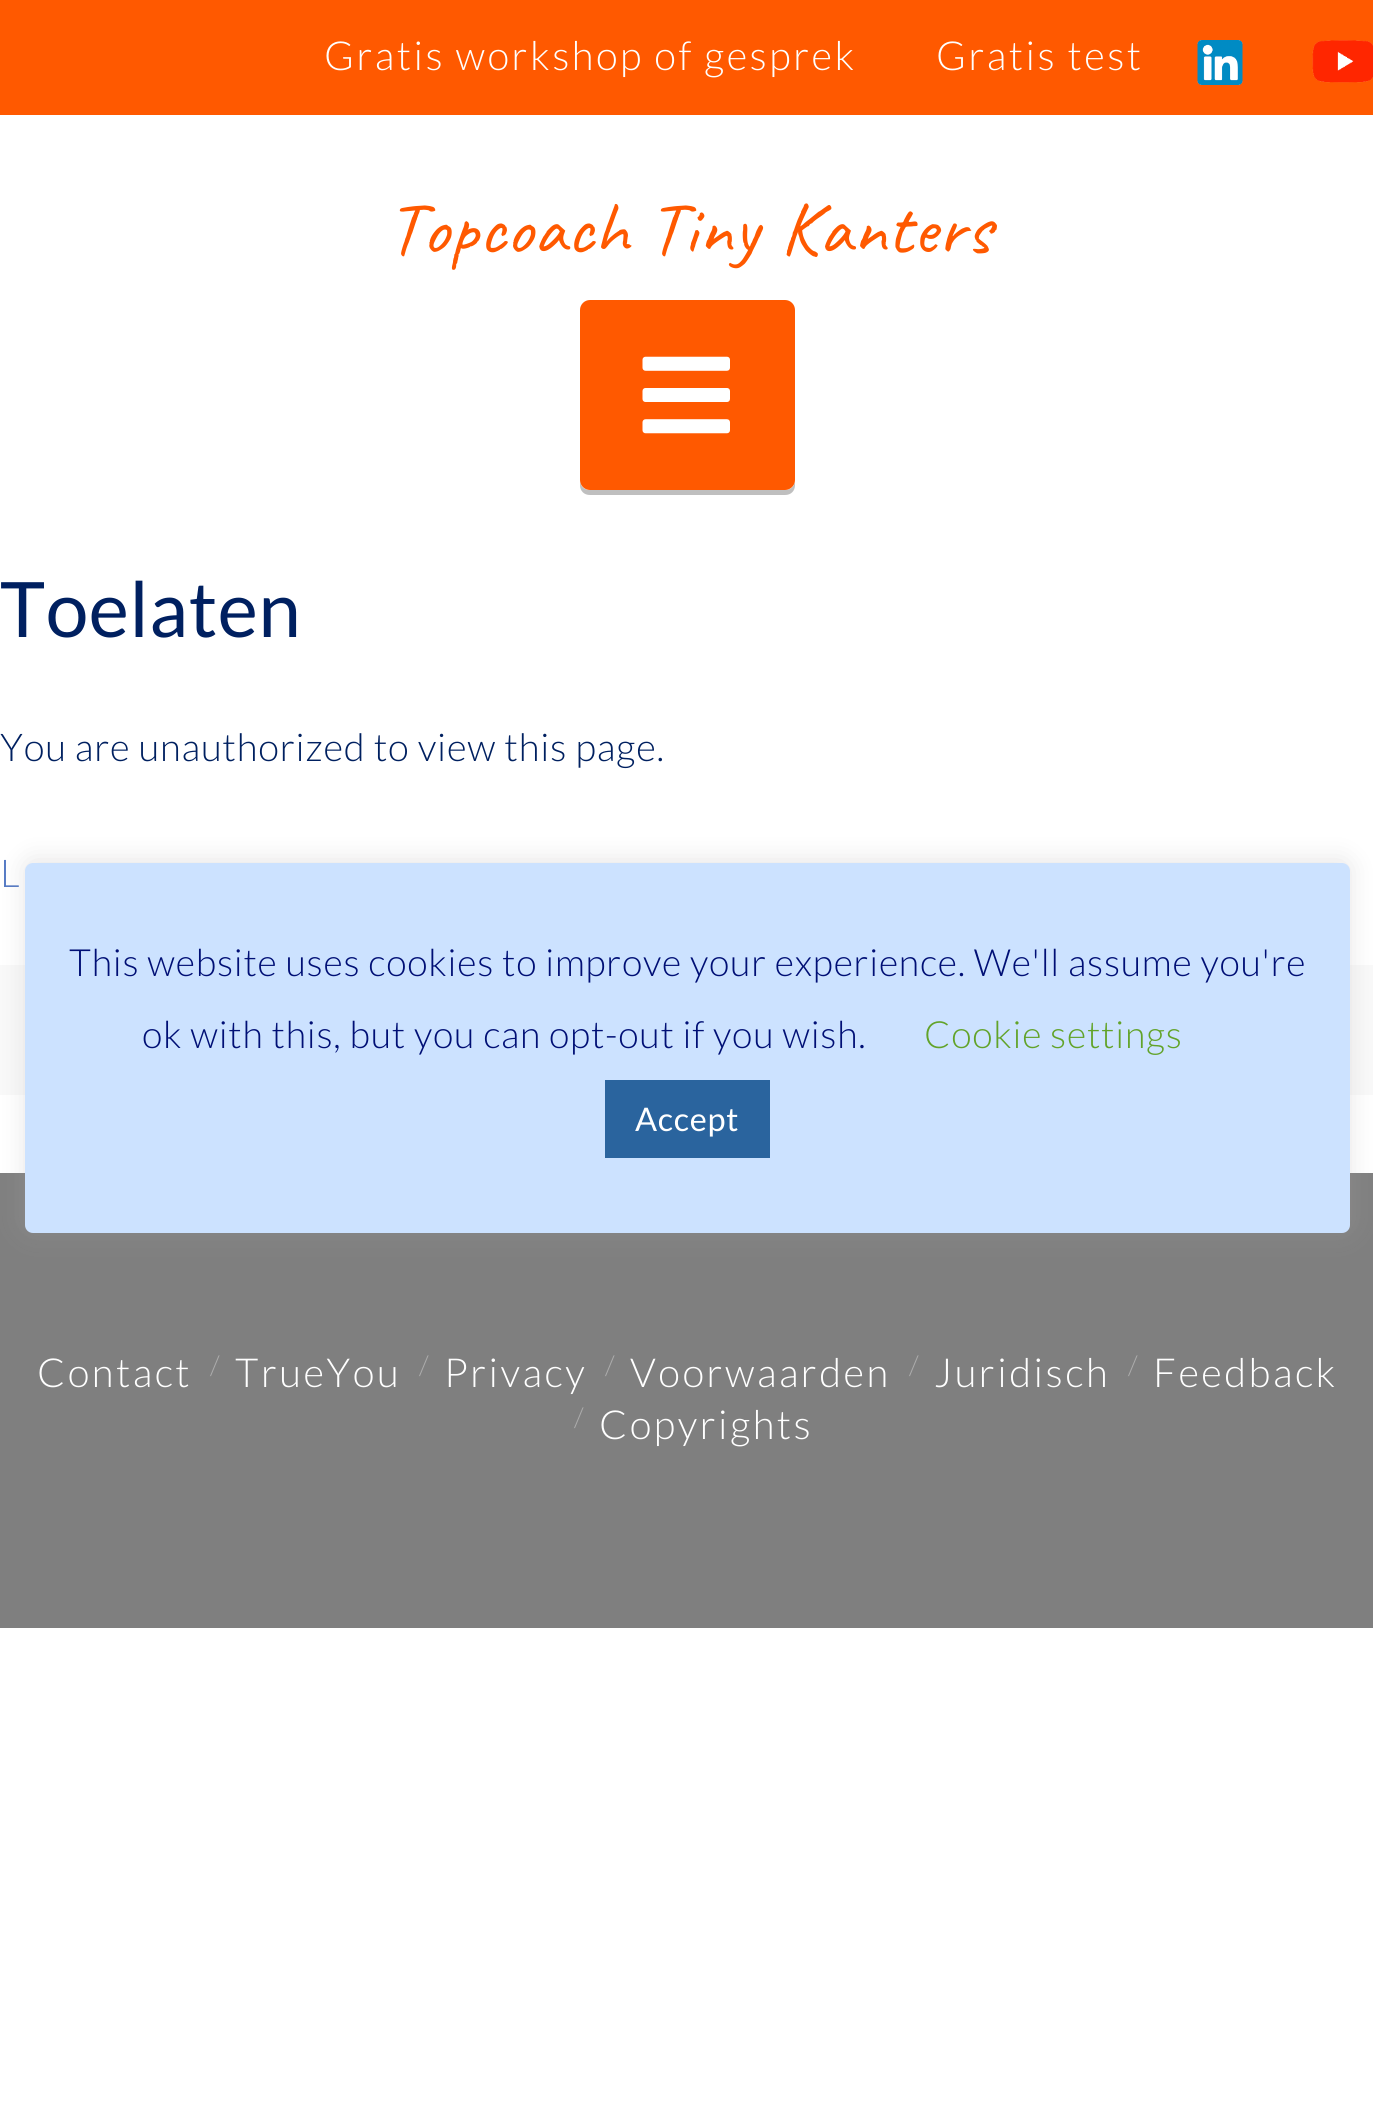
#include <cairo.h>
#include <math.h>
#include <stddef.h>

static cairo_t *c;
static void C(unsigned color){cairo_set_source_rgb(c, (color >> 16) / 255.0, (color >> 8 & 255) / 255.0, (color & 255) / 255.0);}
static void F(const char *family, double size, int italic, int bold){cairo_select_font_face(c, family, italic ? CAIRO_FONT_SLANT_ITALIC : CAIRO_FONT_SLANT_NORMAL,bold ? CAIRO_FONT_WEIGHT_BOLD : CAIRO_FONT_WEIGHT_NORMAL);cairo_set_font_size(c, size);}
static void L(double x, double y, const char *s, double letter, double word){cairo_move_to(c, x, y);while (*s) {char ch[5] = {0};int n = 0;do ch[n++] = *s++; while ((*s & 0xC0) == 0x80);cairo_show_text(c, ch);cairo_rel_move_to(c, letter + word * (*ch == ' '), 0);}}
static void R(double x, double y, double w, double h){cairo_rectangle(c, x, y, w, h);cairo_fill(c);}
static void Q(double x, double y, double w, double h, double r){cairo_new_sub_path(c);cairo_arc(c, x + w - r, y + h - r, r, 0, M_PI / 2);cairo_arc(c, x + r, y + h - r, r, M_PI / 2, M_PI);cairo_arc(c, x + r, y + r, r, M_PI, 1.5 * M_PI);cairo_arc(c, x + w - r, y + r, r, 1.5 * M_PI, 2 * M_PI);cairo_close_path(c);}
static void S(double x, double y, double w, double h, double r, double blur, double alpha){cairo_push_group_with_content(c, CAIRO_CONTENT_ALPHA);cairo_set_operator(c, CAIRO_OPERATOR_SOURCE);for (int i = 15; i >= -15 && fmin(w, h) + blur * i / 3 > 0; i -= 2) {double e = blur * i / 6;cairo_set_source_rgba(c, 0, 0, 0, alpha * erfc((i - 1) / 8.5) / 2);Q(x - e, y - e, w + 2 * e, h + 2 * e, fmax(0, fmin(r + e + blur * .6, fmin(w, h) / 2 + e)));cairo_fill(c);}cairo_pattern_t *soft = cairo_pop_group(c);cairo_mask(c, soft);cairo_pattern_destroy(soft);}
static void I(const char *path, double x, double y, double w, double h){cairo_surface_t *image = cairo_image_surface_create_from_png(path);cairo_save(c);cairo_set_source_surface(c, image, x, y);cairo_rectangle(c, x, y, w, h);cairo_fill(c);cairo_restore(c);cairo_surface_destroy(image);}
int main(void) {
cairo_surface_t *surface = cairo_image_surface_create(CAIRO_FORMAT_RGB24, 1373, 2119);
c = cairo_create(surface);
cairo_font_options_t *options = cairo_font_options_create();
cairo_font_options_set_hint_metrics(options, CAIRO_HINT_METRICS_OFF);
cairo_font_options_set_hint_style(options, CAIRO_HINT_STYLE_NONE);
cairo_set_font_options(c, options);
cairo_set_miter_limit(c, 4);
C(0xffffff);
cairo_paint(c);
C(0xff5900);
R(0,0,1373,115);
F("Lato Light",40,0,0);
C(0xffffff);
L(324,70,"Gratis workshop of gesprek",2.5,0);
L(936,70,"Gratis test",2.5,0);
I("1.png",1197,40,46,45);
I("2.png",1312,40,61,43);
F("Caveat",75,0,0);
C(0xff5900);
L(387,253,"Topcoach",.75,0);
L(648,253,"Tiny Kanters",.75,3);
C(0xbfbfbf);
cairo_new_path(c);
cairo_move_to(c,580,480);
cairo_line_to(c,580,485);
cairo_curve_to(c,580,491,584,495,590,495);
cairo_line_to(c,785,495);
cairo_curve_to(c,791,495,795,491,795,485);
cairo_line_to(c,795,480);
cairo_curve_to(c,795,486,791,490,785,490);
cairo_line_to(c,590,490);
cairo_curve_to(c,584,490,580,486,580,480);
cairo_close_path(c);
cairo_fill(c);
C(0xff5900);
Q(580,300,215,190,10);
cairo_fill(c);
I("3.png",642,356,88,78);
F("Lato",76.5,0,0);
C(0x002060);
L(0,637,"Toelaten",.5,0);
F("Lato Light",38.25,0,0);
L(0,761,"You are unauthorized to view this page.",.77,0);
C(0x5378c3);
L(0,887,"L",.77,0);
C(0xf9f9f9);
R(0,965,1373,130);
C(0x7f7f7f);
R(0,1173,1373,455);
F("Lato Light",40,0,0);
C(0xffffff);
L(37,1387,"Contact",2.5,0);
F("Lato Light",27,0,0);
C(0xacacac);
L(210,1375,"/",.77,0);
F("Lato Light",40,0,0);
C(0xffffff);
L(235,1387,"TrueYou",2.5,0);
F("Lato Light",27,0,0);
C(0xacacac);
L(419,1375,"/",.77,0);
F("Lato Light",40,0,0);
C(0xffffff);
L(444,1387,"Privacy",2.5,0);
F("Lato Light",27,0,0);
C(0xacacac);
L(605,1375,"/",.77,0);
F("Lato Light",40,0,0);
C(0xffffff);
L(630,1387,"Voorwaarden",2.5,0);
F("Lato Light",27,0,0);
C(0xacacac);
L(909,1375,"/",.77,0);
F("Lato Light",40,0,0);
C(0xffffff);
L(934,1387,"Juridisch",2.5,0);
F("Lato Light",27,0,0);
C(0xacacac);
L(1128,1375,"/",.77,0);
F("Lato Light",40,0,0);
C(0xffffff);
L(1153,1387,"Feedback",2.5,0);
F("Lato Light",27,0,0);
C(0xacacac);
L(574,1427,"/",.77,0);
F("Lato Light",40,0,0);
C(0xffffff);
L(599,1439,"Copyrights",2.5,0);
C(0xacabab);
S(25,860,1325,370,8,12.5,.3);
C(0xcce2ff);
Q(25,863,1325,370,8);
cairo_fill(c);
F("Lato Light",37.5,0,0);
C(0x000f75);
L(69,976,"This website uses cookies to improve your experience. We'll assume you're",.77,0);
L(142,1048,"ok with this, but you can opt-out if you wish.",.77,0);
C(0x62a329);
L(924,1048,"Cookie settings",.77,0);
C(0x2a649e);
R(605,1080,165,78);
F("Lato",32.5,0,0);
C(0xffffff);
L(635,1131,"Accept",.77,0);
cairo_surface_write_to_png(surface, "o.png");
cairo_font_options_destroy(options);
cairo_destroy(c);
cairo_surface_destroy(surface);
return 0;
}
